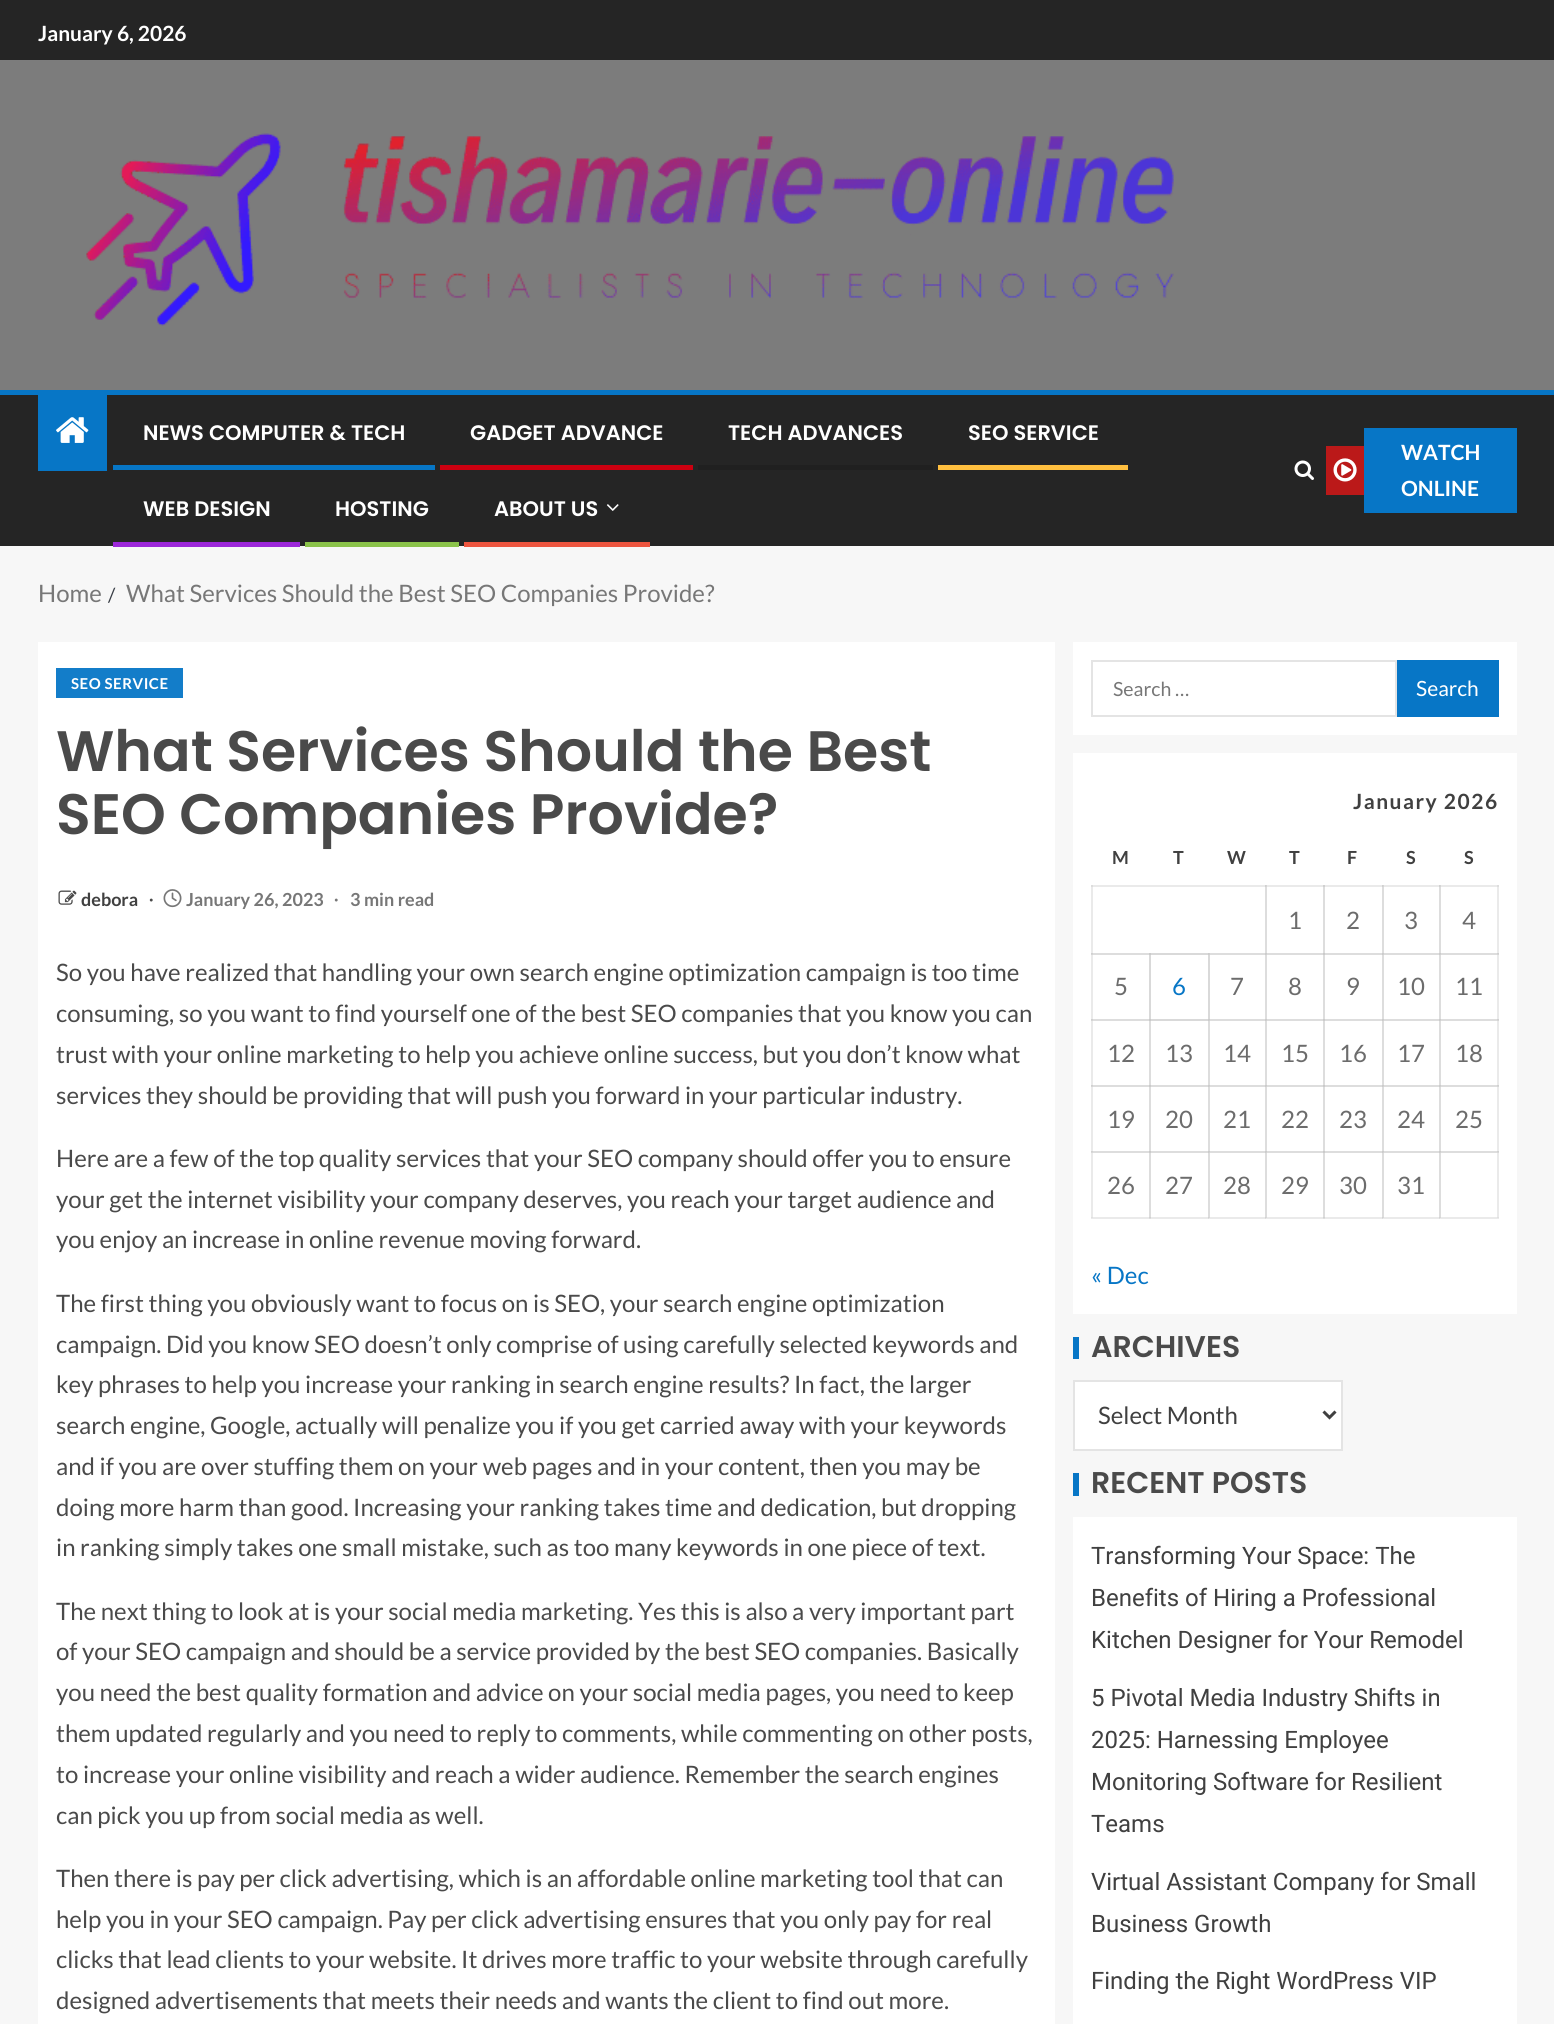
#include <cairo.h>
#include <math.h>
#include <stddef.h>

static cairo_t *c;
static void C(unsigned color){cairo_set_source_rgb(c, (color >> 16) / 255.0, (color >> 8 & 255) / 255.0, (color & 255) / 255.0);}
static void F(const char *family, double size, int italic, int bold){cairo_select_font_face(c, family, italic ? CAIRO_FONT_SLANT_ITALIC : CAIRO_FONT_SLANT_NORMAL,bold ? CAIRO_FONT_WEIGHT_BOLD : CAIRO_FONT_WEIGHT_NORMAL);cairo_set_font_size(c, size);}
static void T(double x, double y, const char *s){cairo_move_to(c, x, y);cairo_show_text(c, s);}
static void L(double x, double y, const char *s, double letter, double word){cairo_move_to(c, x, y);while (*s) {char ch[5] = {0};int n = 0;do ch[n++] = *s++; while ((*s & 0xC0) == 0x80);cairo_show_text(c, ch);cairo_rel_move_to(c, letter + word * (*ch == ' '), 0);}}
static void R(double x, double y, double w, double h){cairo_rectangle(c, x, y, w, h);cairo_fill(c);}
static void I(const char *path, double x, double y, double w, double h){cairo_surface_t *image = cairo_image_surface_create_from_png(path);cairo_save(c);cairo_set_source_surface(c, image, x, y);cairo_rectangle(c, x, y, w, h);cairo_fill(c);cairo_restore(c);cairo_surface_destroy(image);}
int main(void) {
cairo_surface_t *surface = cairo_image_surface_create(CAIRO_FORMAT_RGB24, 1554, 2024);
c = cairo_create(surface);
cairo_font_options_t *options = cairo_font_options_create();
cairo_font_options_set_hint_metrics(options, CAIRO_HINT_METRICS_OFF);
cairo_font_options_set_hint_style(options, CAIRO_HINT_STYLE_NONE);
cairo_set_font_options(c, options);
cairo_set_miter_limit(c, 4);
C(0xf7f7f7);
cairo_paint(c);
C(0x252525);
R(0,0,1554,60);
F("Lato",21,0,1);
C(0xffffff);
T(38,41,"January 6, 2026");
C(0x7c7c7c);
R(0,60,1554,330);
I("1.png",86,133,1088,193);
C(0x252525);
R(0,395,1554,151);
C(0x0776c6);
R(0,390,1554,5);
R(38,395,69,76);
I("2.png",56,417,33,26);
F("Poppins SemiBold",21,0,0);
C(0xffffff);
T(143,440,"NEWS COMPUTER & TECH");
C(0x0776c6);
R(113,465,322,5);
C(0xffffff);
T(470,440,"GADGET ADVANCE");
C(0xcc0010);
R(440,465,253,5);
C(0xffffff);
T(728,440,"TECH ADVANCES");
C(0x202020);
R(698,465,235,5);
C(0xffffff);
T(968,440,"SEO SERVICE");
C(0xffbf3f);
R(938,465,190,5);
C(0xffffff);
T(143,516,"WEB DESIGN");
C(0x9c27d9);
R(113,542,187,5);
C(0xffffff);
T(335,516,"HOSTING");
C(0x8bc34a);
R(305,542,154,5);
C(0xffffff);
T(494,516,"ABOUT US");
I("3.png",606,504,13,7);
C(0xed553f);
R(464,542,186,5);
I("4.png",1294,460,20,20);
C(0xbb1919);
R(1326,446,38,49);
I("5.png",1333,458,24,24);
C(0x0776c6);
R(1364,428,153,85);
F("Lato",21,0,1);
C(0xffffff);
T(1401,460,"WATCH");
T(1401,496,"ONLINE");
F("Lato",24,0,0);
C(0x777777);
T(38,602,"Home");
F("Lato",19.5,0,0);
C(0x393e46);
T(108,602,"/");
F("Lato",24,0,0);
C(0x777777);
T(126,602,"What Services Should the Best SEO Companies Provide?");
C(0xffffff);
R(38,642,1017,1382);
C(0x137dc9);
R(56,668,127,30);
F("Lato",15,0,1);
C(0xffffff);
L(71,689,"SEO SERVICE",.5,0);
F("Poppins SemiBold",57,0,0);
C(0x4a4a4a);
T(56,771,"What Services Should the Best");
T(56,834,"SEO Companies Provide?");
I("6.png",58,890,19,15);
F("Lato",18,0,1);
C(0x404040);
T(81,906,"debora");
F("Liberation Serif",18,0,1);
C(0x4a4a4a);
T(149,906,"∙");
I("7.png",163,889,19,19);
F("Lato",18,0,1);
C(0x777777);
T(186,906,"January 26, 2023");
F("Liberation Serif",18,0,1);
T(334,906,"∙");
F("Lato",18,0,1);
T(350,906,"3 min read");
F("Lato",24,0,0);
C(0x4a4a4a);
T(56,981,"So you have realized that handling your own search engine optimization campaign is too time");
T(56,1022,"consuming, so you want to find yourself one of the best SEO companies that you know you can");
T(56,1063,"trust with your online marketing to help you achieve online success, but you don’t know what");
T(56,1104,"services they should be providing that will push you forward in your particular industry.");
T(56,1167,"Here are a few of the top quality services that your SEO company should offer you to ensure");
T(56,1208,"your get the internet visibility your company deserves, you reach your target audience and");
T(56,1248,"you enjoy an increase in online revenue moving forward.");
T(56,1312,"The first thing you obviously want to focus on is SEO, your search engine optimization");
T(56,1353,"campaign. Did you know SEO doesn’t only comprise of using carefully selected keywords and");
T(56,1393,"key phrases to help you increase your ranking in search engine results? In fact, the larger");
T(56,1434,"search engine, Google, actually will penalize you if you get carried away with your keywords");
T(56,1475,"and if you are over stuffing them on your web pages and in your content, then you may be");
T(56,1516,"doing more harm than good. Increasing your ranking takes time and dedication, but dropping");
T(56,1556,"in ranking simply takes one small mistake, such as too many keywords in one piece of text.");
T(56,1620,"The next thing to look at is your social media marketing. Yes this is also a very important part");
T(56,1660,"of your SEO campaign and should be a service provided by the best SEO companies. Basically");
T(56,1701,"you need the best quality formation and advice on your social media pages, you need to keep");
T(56,1742,"them updated regularly and you need to reply to comments, while commenting on other posts,");
T(56,1783,"to increase your online visibility and reach a wider audience. Remember the search engines");
T(56,1824,"can pick you up from social media as well.");
T(56,1887,"Then there is pay per click advertising, which is an affordable online marketing tool that can");
T(56,1928,"help you in your SEO campaign. Pay per click advertising ensures that you only pay for real");
T(56,1968,"clicks that lead clients to your website. It drives more traffic to your website through carefully");
T(56,2009,"designed advertisements that meets their needs and wants the client to find out more.");
C(0xffffff);
R(1073,642,444,93);
cairo_rectangle(c,1092,661,304,55);
C(0xe4e4e4);
cairo_stroke(c);
F("Lato",19.5,0,0);
C(0x777777);
T(1113,696,"Search …");
C(0x0776c6);
R(1397,660,102,57);
F("Lato",21,0,0);
C(0xffffff);
T(1416,696,"Search");
R(1073,753,444,561);
C(0xeaeaea);
R(1091,885,2,333);
R(1091,885,175,2);
C(0xdddddd);
R(1091,885,2,2);
R(1265,885,2,69);
C(0xeaeaea);
R(1265,885,60,2);
C(0xd5d5d5);
R(1265,885,2,2);
C(0xd0d0d0);
R(1265,885,1,2);
C(0xdddddd);
R(1323,885,2,69);
C(0xeaeaea);
R(1323,885,60,2);
C(0xd0d0d0);
R(1323,885,2,2);
C(0xdddddd);
R(1382,885,2,69);
C(0xeaeaea);
R(1382,885,58,2);
C(0xd5d5d5);
R(1382,885,2,2);
C(0xd0d0d0);
R(1382,885,1,2);
C(0xdddddd);
R(1439,885,2,69);
C(0xeaeaea);
R(1497,885,2,267);
C(0xdddddd);
R(1091,953,60,2);
C(0xd5d5d5);
R(1091,954,2,1);
C(0xd0d0d0);
R(1091,953,2,1);
C(0xd9d9d9);
R(1149,953,2,67);
R(1149,953,60,2);
C(0xcbcbcb);
R(1149,953,2,2);
C(0xd9d9d9);
R(1208,953,2,67);
C(0xdddddd);
R(1208,953,58,2);
C(0xcfcfcf);
R(1208,953,2,2);
C(0xcccccc);
R(1208,953,1,2);
C(0xdddddd);
R(1265,953,2,67);
R(1265,953,60,2);
C(0xd0d0d0);
R(1265,954,2,1);
C(0xcbcbcb);
R(1265,953,2,1);
R(1265,953,1,2);
C(0xdddddd);
R(1323,953,2,67);
R(1323,953,60,2);
C(0xcbcbcb);
R(1323,954,2,1);
C(0xc9c9c9);
R(1323,953,2,1);
C(0xdddddd);
R(1382,953,2,67);
R(1382,953,58,2);
C(0xd0d0d0);
R(1382,954,2,1);
C(0xcbcbcb);
R(1382,953,2,1);
R(1382,953,1,2);
C(0xdddddd);
R(1439,953,2,67);
R(1091,1019,60,2);
C(0xd5d5d5);
R(1091,1020,2,1);
C(0xd0d0d0);
R(1091,1019,2,1);
C(0xdddddd);
R(1149,1019,2,67);
C(0xd9d9d9);
R(1149,1019,60,2);
C(0xcacaca);
R(1149,1020,2,1);
C(0xc9c9c9);
R(1149,1019,2,1);
C(0xdddddd);
R(1208,1019,2,67);
R(1208,1019,58,2);
C(0xd0d0d0);
R(1208,1020,2,1);
C(0xcbcbcb);
R(1208,1019,2,1);
R(1208,1019,1,2);
C(0xdddddd);
R(1265,1019,2,67);
R(1265,1019,60,2);
C(0xd0d0d0);
R(1265,1020,2,1);
C(0xcbcbcb);
R(1265,1019,2,1);
R(1265,1019,1,2);
C(0xdddddd);
R(1323,1019,2,67);
R(1323,1019,60,2);
C(0xcbcbcb);
R(1323,1020,2,1);
C(0xc9c9c9);
R(1323,1019,2,1);
C(0xdddddd);
R(1382,1019,2,67);
R(1382,1019,58,2);
C(0xd0d0d0);
R(1382,1020,2,1);
C(0xcbcbcb);
R(1382,1019,2,1);
R(1382,1019,1,2);
C(0xdddddd);
R(1439,1019,2,67);
R(1091,1085,60,2);
C(0xd5d5d5);
R(1091,1086,2,1);
C(0xd0d0d0);
R(1091,1085,2,1);
C(0xdddddd);
R(1149,1085,2,67);
R(1149,1085,60,2);
C(0xcbcbcb);
R(1149,1086,2,1);
C(0xc9c9c9);
R(1149,1085,2,1);
C(0xdddddd);
R(1208,1085,2,67);
R(1208,1085,58,2);
C(0xd0d0d0);
R(1208,1086,2,1);
C(0xcbcbcb);
R(1208,1085,2,1);
R(1208,1085,1,2);
C(0xdddddd);
R(1265,1085,2,67);
R(1265,1085,60,2);
C(0xd0d0d0);
R(1265,1086,2,1);
C(0xcbcbcb);
R(1265,1085,2,1);
R(1265,1085,1,2);
C(0xdddddd);
R(1323,1085,2,67);
R(1323,1085,60,2);
C(0xcbcbcb);
R(1323,1086,2,1);
C(0xc9c9c9);
R(1323,1085,2,1);
C(0xdddddd);
R(1382,1085,2,67);
R(1382,1085,58,2);
C(0xd0d0d0);
R(1382,1086,2,1);
C(0xcbcbcb);
R(1382,1085,2,1);
R(1382,1085,1,2);
C(0xdddddd);
R(1439,1085,2,67);
C(0xeaeaea);
R(1091,1217,60,2);
C(0xe0e0e0);
R(1091,1217,2,1);
C(0xdddddd);
R(1091,1151,60,2);
C(0xd7d7d7);
R(1091,1152,2,1);
C(0xd1d1d1);
R(1091,1151,2,1);
C(0xdddddd);
R(1149,1151,2,67);
C(0xeaeaea);
R(1149,1217,60,2);
C(0xdddddd);
R(1149,1218,2,1);
C(0xd1d1d1);
R(1149,1217,2,1);
C(0xdddddd);
R(1149,1151,60,2);
C(0xcbcbcb);
R(1149,1152,2,1);
C(0xc9c9c9);
R(1149,1151,2,1);
C(0xdddddd);
R(1208,1151,2,67);
C(0xeaeaea);
R(1208,1217,58,2);
C(0xdddddd);
R(1208,1217,1,2);
C(0xd7d7d7);
R(1208,1217,2,1);
C(0xd1d1d1);
R(1208,1217,1,1);
C(0xdddddd);
R(1208,1151,58,2);
C(0xd1d1d1);
R(1208,1152,2,1);
C(0xcbcbcb);
R(1208,1151,2,1);
R(1208,1151,1,2);
C(0xdddddd);
R(1265,1151,2,67);
C(0xeaeaea);
R(1265,1217,60,2);
C(0xdddddd);
R(1265,1217,1,2);
C(0xd7d7d7);
R(1265,1217,2,1);
C(0xd1d1d1);
R(1265,1217,1,1);
C(0xdddddd);
R(1265,1151,60,2);
C(0xd1d1d1);
R(1265,1152,2,1);
C(0xcbcbcb);
R(1265,1151,2,1);
R(1265,1151,1,2);
C(0xdddddd);
R(1323,1151,2,67);
C(0xeaeaea);
R(1323,1217,60,2);
C(0xdddddd);
R(1323,1218,2,1);
C(0xd1d1d1);
R(1323,1217,2,1);
C(0xdddddd);
R(1323,1151,60,2);
C(0xcbcbcb);
R(1323,1152,2,1);
C(0xc9c9c9);
R(1323,1151,2,1);
C(0xdddddd);
R(1382,1151,2,67);
C(0xeaeaea);
R(1382,1217,58,2);
C(0xdddddd);
R(1382,1217,1,2);
C(0xd7d7d7);
R(1382,1217,2,1);
C(0xd1d1d1);
R(1382,1217,1,1);
C(0xdddddd);
R(1382,1151,58,2);
C(0xd1d1d1);
R(1382,1152,2,1);
C(0xcbcbcb);
R(1382,1151,2,1);
R(1382,1151,1,2);
C(0xdddddd);
R(1439,1151,2,67);
C(0xeaeaea);
R(1439,1217,60,2);
C(0xdddddd);
R(1439,1217,1,2);
C(0xd7d7d7);
R(1439,1217,2,1);
C(0xd1d1d1);
R(1439,1217,1,1);
C(0xeaeaea);
R(1497,1151,2,67);
C(0xe0e0e0);
R(1497,1217,2,1);
F("Lato",21,0,1);
C(0x404040);
L(1353,809,"January 2026",1.5,0);
F("Lato",18,0,1);
T(1112,864,"M");
T(1173,864,"T");
T(1227,864,"W");
T(1289,864,"T");
T(1347,864,"F");
T(1406,864,"S");
T(1464,864,"S");
F("Lato",24,0,0);
C(0x6c6c6c);
T(1288,929,"1");
T(1346,929,"2");
T(1404,929,"3");
C(0xeaeaea);
R(1439,885,60,2);
C(0xd5d5d5);
R(1439,885,2,2);
C(0xd0d0d0);
R(1439,885,1,2);
C(0xdddddd);
R(1497,885,2,2);
C(0x6c6c6c);
T(1462,929,"4");
T(1114,995,"5");
C(0x0776c6);
T(1172,995,"6");
C(0x6c6c6c);
T(1230,995,"7");
T(1288,995,"8");
T(1346,995,"9");
T(1397,995,"10");
C(0xdddddd);
R(1439,953,60,2);
C(0xd0d0d0);
R(1439,954,2,1);
C(0xcbcbcb);
R(1439,953,2,1);
R(1439,953,1,2);
C(0xd5d5d5);
R(1497,954,2,1);
C(0xd0d0d0);
R(1497,953,2,1);
C(0x6c6c6c);
T(1455,995,"11");
T(1107,1062,"12");
T(1165,1062,"13");
T(1223,1062,"14");
T(1281,1062,"15");
T(1339,1062,"16");
T(1397,1062,"17");
C(0xdddddd);
R(1439,1019,60,2);
C(0xd0d0d0);
R(1439,1020,2,1);
C(0xcbcbcb);
R(1439,1019,2,1);
R(1439,1019,1,2);
C(0xd5d5d5);
R(1497,1020,2,1);
C(0xd0d0d0);
R(1497,1019,2,1);
C(0x6c6c6c);
T(1455,1062,"18");
T(1107,1128,"19");
T(1165,1128,"20");
T(1223,1128,"21");
T(1281,1128,"22");
T(1339,1128,"23");
T(1397,1128,"24");
C(0xdddddd);
R(1439,1085,60,2);
C(0xd0d0d0);
R(1439,1086,2,1);
C(0xcbcbcb);
R(1439,1085,2,1);
R(1439,1085,1,2);
C(0xd5d5d5);
R(1497,1086,2,1);
C(0xd0d0d0);
R(1497,1085,2,1);
C(0x6c6c6c);
T(1455,1128,"25");
C(0xdddddd);
R(1439,1151,60,2);
C(0xd1d1d1);
R(1439,1152,2,1);
C(0xcbcbcb);
R(1439,1151,2,1);
R(1439,1151,1,2);
C(0xd7d7d7);
R(1497,1152,2,1);
C(0xd1d1d1);
R(1497,1151,2,1);
C(0x6c6c6c);
T(1107,1194,"26");
T(1165,1194,"27");
T(1223,1194,"28");
T(1281,1194,"29");
T(1339,1194,"30");
T(1397,1194,"31");
C(0x0776c6);
T(1091,1284,"« Dec");
R(1073,1337,6,22);
F("Poppins SemiBold",30,0,0);
C(0x4a4a4a);
T(1091,1357,"ARCHIVES");
C(0xffffff);
cairo_rectangle(c,1074,1381,268,69);
cairo_fill_preserve(c);
C(0xe4e4e4);
cairo_stroke(c);
cairo_new_path(c);
cairo_move_to(c,1323.5,1411.5);
cairo_line_to(c,1329.5,1417.5);
cairo_line_to(c,1335.5,1411.5);
C(0x404040);
cairo_set_line_width(c,3);
cairo_stroke(c);
F("Lato",24,0,0);
T(1098,1424,"Select Month");
C(0x0776c6);
R(1073,1473,6,23);
F("Poppins SemiBold",30,0,0);
C(0x4a4a4a);
T(1091,1493,"RECENT POSTS");
C(0xffffff);
R(1073,1517,444,507);
F("Roboto",24,0,0);
C(0x404040);
T(1091,1564,"Transforming Your Space: The");
T(1091,1606,"Benefits of Hiring a Professional");
T(1091,1648,"Kitchen Designer for Your Remodel");
T(1091,1706,"5 Pivotal Media Industry Shifts in");
T(1091,1748,"2025: Harnessing Employee");
T(1091,1790,"Monitoring Software for Resilient");
T(1091,1832,"Teams");
T(1091,1890,"Virtual Assistant Company for Small");
T(1091,1932,"Business Growth");
T(1091,1989,"Finding the Right WordPress VIP");
cairo_surface_write_to_png(surface, "o.png");
cairo_font_options_destroy(options);
cairo_destroy(c);
cairo_surface_destroy(surface);
return 0;
}
